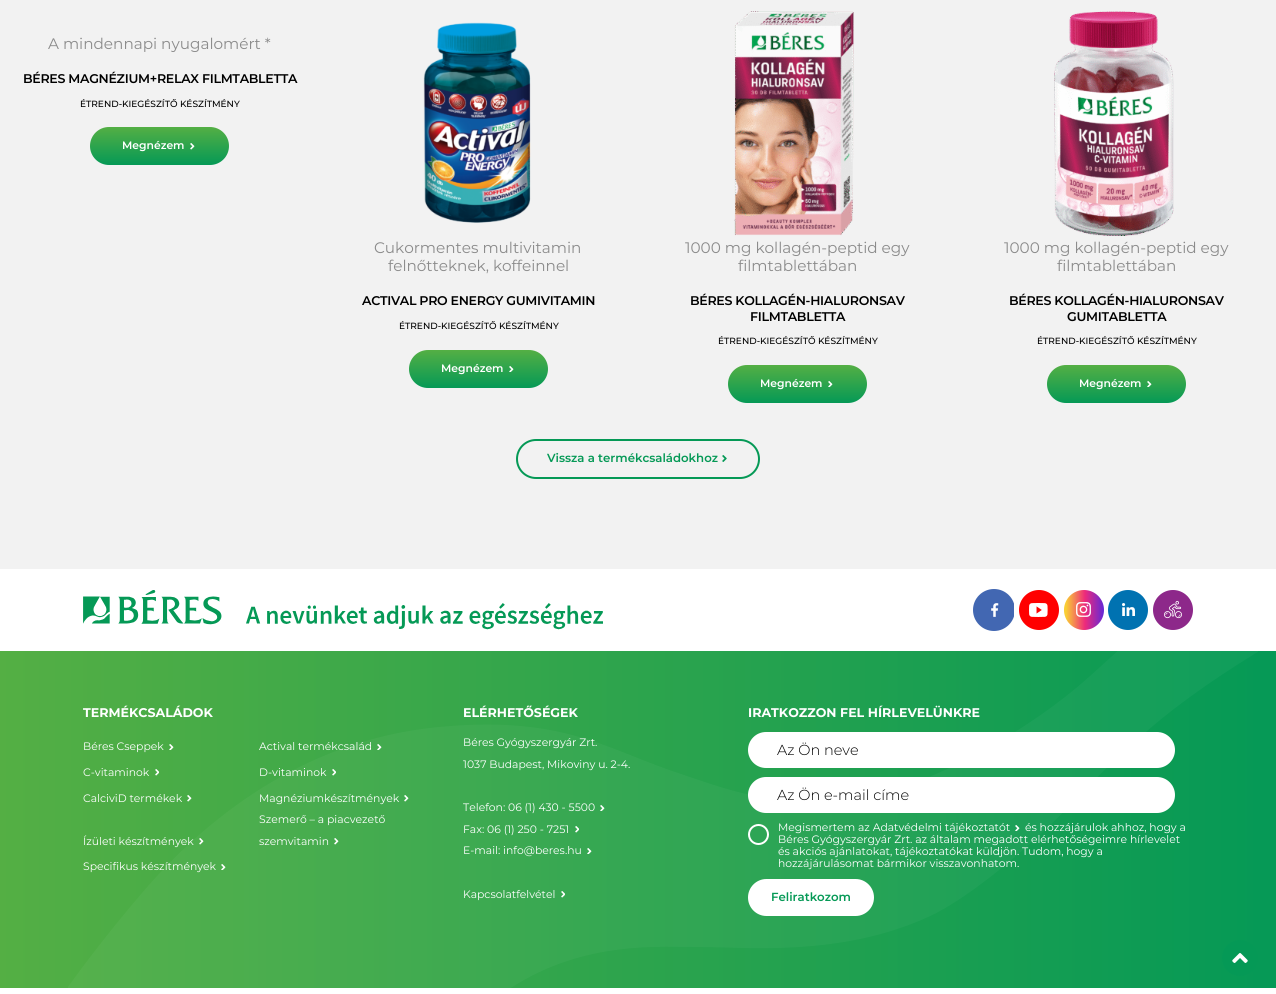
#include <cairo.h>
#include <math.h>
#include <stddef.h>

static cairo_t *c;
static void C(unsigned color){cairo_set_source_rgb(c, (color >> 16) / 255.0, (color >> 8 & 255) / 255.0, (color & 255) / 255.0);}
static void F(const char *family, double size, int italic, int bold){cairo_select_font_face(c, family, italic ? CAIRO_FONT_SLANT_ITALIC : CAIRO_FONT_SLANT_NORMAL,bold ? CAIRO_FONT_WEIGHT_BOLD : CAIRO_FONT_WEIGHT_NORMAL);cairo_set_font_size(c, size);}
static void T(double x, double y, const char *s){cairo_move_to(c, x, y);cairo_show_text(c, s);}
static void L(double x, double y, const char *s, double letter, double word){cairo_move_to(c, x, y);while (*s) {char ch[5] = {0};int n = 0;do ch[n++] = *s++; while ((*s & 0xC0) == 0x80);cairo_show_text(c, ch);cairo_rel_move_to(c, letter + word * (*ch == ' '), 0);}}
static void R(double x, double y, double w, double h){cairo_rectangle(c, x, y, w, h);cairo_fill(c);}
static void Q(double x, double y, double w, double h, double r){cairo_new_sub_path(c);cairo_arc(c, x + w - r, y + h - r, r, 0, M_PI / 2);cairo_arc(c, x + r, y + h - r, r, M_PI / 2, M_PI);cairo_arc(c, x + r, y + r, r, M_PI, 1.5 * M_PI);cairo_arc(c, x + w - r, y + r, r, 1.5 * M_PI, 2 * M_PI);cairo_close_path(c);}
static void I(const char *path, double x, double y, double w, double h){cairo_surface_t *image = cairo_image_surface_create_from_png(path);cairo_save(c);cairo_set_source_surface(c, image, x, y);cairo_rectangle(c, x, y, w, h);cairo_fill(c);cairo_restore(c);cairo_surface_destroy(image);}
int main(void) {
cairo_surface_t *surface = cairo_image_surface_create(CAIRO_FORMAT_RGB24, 1276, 994);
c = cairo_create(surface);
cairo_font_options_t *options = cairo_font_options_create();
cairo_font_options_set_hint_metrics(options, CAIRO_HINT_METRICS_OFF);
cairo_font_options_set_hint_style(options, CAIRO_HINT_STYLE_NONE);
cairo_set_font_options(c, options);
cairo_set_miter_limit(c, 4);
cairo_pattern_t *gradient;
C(0xf2f2f2);
cairo_paint(c);
F("Montserrat",15.25,0,0);
C(0x8b8b8b);
T(48,49,"A mindennapi nyugalomért *");
F("Montserrat SemiBold",12.6,0,0);
C(0x000000);
L(23,83,"BÉRES MAGNÉZIUM+RELAX FILMTABLETTA",-.3,0);
F("Montserrat Medium",9,0,0);
T(80,107,"ÉTREND-KIEGÉSZÍTŐ KÉSZÍTMÉNY");
gradient = cairo_pattern_create_linear(160,127,160,165);
cairo_pattern_add_color_stop_rgba(gradient,0,0.329,0.686,0.267,1);
cairo_pattern_add_color_stop_rgba(gradient,1,0.02,0.6,0.337,1);
cairo_set_source(c,gradient);
cairo_pattern_destroy(gradient);
Q(90,127,139,38,19);
cairo_fill(c);
F("Montserrat SemiBold",10.8,0,0);
C(0xffffff);
T(122,149,"Megnézem");
I("1.png",190,143,5,7);
I("2.png",423,22,108,201);
F("Montserrat",15.25,0,0);
C(0x8b8b8b);
T(374,253,"Cukormentes multivitamin");
T(388,271,"felnőtteknek, koffeinnel");
F("Montserrat SemiBold",12.6,0,0);
C(0x000000);
L(362,305,"ACTIVAL PRO ENERGY GUMIVITAMIN",-.3,0);
F("Montserrat Medium",9,0,0);
T(399,329,"ÉTREND-KIEGÉSZÍTŐ KÉSZÍTMÉNY");
gradient = cairo_pattern_create_linear(479,350,479,388);
cairo_pattern_add_color_stop_rgba(gradient,0,0.329,0.686,0.267,1);
cairo_pattern_add_color_stop_rgba(gradient,1,0.02,0.6,0.337,1);
cairo_set_source(c,gradient);
cairo_pattern_destroy(gradient);
Q(409,350,139,38,19);
cairo_fill(c);
F("Montserrat SemiBold",10.8,0,0);
C(0xffffff);
T(441,372,"Megnézem");
I("3.png",509,366,5,6);
I("4.png",734,11,120,225);
F("Montserrat",15.25,0,0);
C(0x8b8b8b);
T(685,253,"1000 mg kollagén-peptid egy");
T(738,271,"filmtablettában");
F("Montserrat SemiBold",12.6,0,0);
C(0x000000);
L(690,305,"BÉRES KOLLAGÉN-HIALURONSAV",-.3,0);
L(750,321,"FILMTABLETTA",-.3,0);
F("Montserrat Medium",9,0,0);
T(718,344,"ÉTREND-KIEGÉSZÍTŐ KÉSZÍTMÉNY");
gradient = cairo_pattern_create_linear(798,365,798,403);
cairo_pattern_add_color_stop_rgba(gradient,0,0.329,0.686,0.267,1);
cairo_pattern_add_color_stop_rgba(gradient,1,0.02,0.6,0.337,1);
cairo_set_source(c,gradient);
cairo_pattern_destroy(gradient);
Q(728,365,139,38,19);
cairo_fill(c);
F("Montserrat SemiBold",10.8,0,0);
C(0xffffff);
T(760,387,"Megnézem");
I("3.png",828,381,5,6);
I("5.png",1054,11,120,225);
F("Montserrat",15.25,0,0);
C(0x8b8b8b);
T(1004,253,"1000 mg kollagén-peptid egy");
T(1057,271,"filmtablettában");
F("Montserrat SemiBold",12.6,0,0);
C(0x000000);
L(1009,305,"BÉRES KOLLAGÉN-HIALURONSAV",-.3,0);
L(1067,321,"GUMITABLETTA",-.3,0);
F("Montserrat Medium",9,0,0);
T(1037,344,"ÉTREND-KIEGÉSZÍTŐ KÉSZÍTMÉNY");
gradient = cairo_pattern_create_linear(1117,365,1117,403);
cairo_pattern_add_color_stop_rgba(gradient,0,0.329,0.686,0.267,1);
cairo_pattern_add_color_stop_rgba(gradient,1,0.02,0.6,0.337,1);
cairo_set_source(c,gradient);
cairo_pattern_destroy(gradient);
Q(1047,365,139,38,19);
cairo_fill(c);
F("Montserrat SemiBold",10.8,0,0);
C(0xffffff);
T(1079,387,"Megnézem");
I("3.png",1147,381,5,6);
Q(517,440,242,38,19);
C(0x059956);
cairo_stroke(c);
F("Montserrat SemiBold",11.75,0,0);
T(547,462,"Vissza a termékcsaládokhoz");
I("6.png",722,455,5,7);
C(0xffffff);
R(0,569,1276,82);
I("7.png",83,590,520,40);
I("8.png",973,589,41,42);
I("9.png",1019,590,40,40);
I("10.png",1064,590,40,40);
I("11.png",1108,590,40,40);
I("12.png",1153,590,40,40);
gradient = cairo_pattern_create_linear(0,820,1276,820);
cairo_pattern_add_color_stop_rgba(gradient,0,0.329,0.686,0.267,1);
cairo_pattern_add_color_stop_rgba(gradient,1,0.02,0.6,0.337,1);
cairo_set_source(c,gradient);
cairo_pattern_destroy(gradient);
R(0,651,1276,337);
I("13.png",68,651,1190,337);
F("Montserrat",12.6,0,1);
C(0xffffff);
T(83,717,"TERMÉKCSALÁDOK");
F("Montserrat",10.8,0,0);
T(83,750,"Béres Cseppek");
I("14.png",169,744,5,6);
T(259,750,"Actival termékcsalád");
I("15.png",377,744,5,6);
T(83,776,"C-vitaminok");
I("16.png",155,769,4,7);
T(259,776,"D-vitaminok");
I("17.png",332,769,4,7);
T(83,802,"CalciviD termékek");
I("18.png",187,795,5,7);
T(259,802,"Magnéziumkészítmények");
I("19.png",404,795,5,7);
T(83,845,"Ízületi készítmények");
I("20.png",199,838,5,7);
T(259,823,"Szemerő – a piacvezető");
T(259,845,"szemvitamin");
I("21.png",334,838,5,7);
T(83,870,"Specifikus készítmények");
I("22.png",221,864,5,6);
F("Montserrat",12.6,0,1);
T(463,717,"ELÉRHETŐSÉGEK");
F("Montserrat",10.8,0,0);
T(463,746,"Béres Gyógyszergyár Zrt.");
T(463,768,"1037 Budapest, Mikoviny u. 2-4.");
T(463,811,"Telefon: 06 (1) 430 - 5500");
I("23.png",600,805,5,6);
T(463,833,"Fax: 06 (1) 250 - 7251");
I("24.png",575,826,4,7);
T(463,854,"E-mail: info@beres.hu");
I("25.png",587,848,5,6);
T(463,898,"Kapcsolatfelvétel");
I("26.png",561,891,4,7);
F("Montserrat",12.6,0,1);
T(748,717,"IRATKOZZON FEL HÍRLEVELÜNKRE");
Q(748,732,427,36,18);
cairo_fill(c);
F("Montserrat Light",14.5,0,0);
C(0x000000);
T(777,755,"Az Ön neve");
C(0xffffff);
Q(748,777,427,36,18);
cairo_fill(c);
C(0x000000);
T(777,800,"Az Ön e-mail címe");
cairo_new_path(c);
cairo_arc(c,758.5,834.5,9.5,0,2 * M_PI);
C(0xffffff);
cairo_stroke(c);
F("Montserrat",10.8,0,0);
T(778,831,"Megismertem az Adatvédelmi tájékoztatót");
I("27.png",1015,825,5,6);
T(1025,831,"és hozzájárulok ahhoz, hogy a");
T(778,843,"Béres Gyógyszergyár Zrt. az általam megadott elérhetőségeimre hírlevelet");
T(778,855,"és akciós ajánlatokat, tájékoztatókat küldjön. Tudom, hogy a");
T(778,867,"hozzájárulásomat bármikor visszavonhatom.");
Q(748,879,126,37,18.5);
cairo_fill(c);
F("Montserrat SemiBold",11.75,0,0);
C(0x059956);
T(771,901,"Feliratkozom");
cairo_new_path(c);
cairo_arc(c,1240,958,18,0,2 * M_PI);
cairo_fill(c);
I("28.png",1232,953,16,10);
C(0xffffff);
R(0,988,1276,6);
cairo_surface_write_to_png(surface, "o.png");
cairo_font_options_destroy(options);
cairo_destroy(c);
cairo_surface_destroy(surface);
return 0;
}
